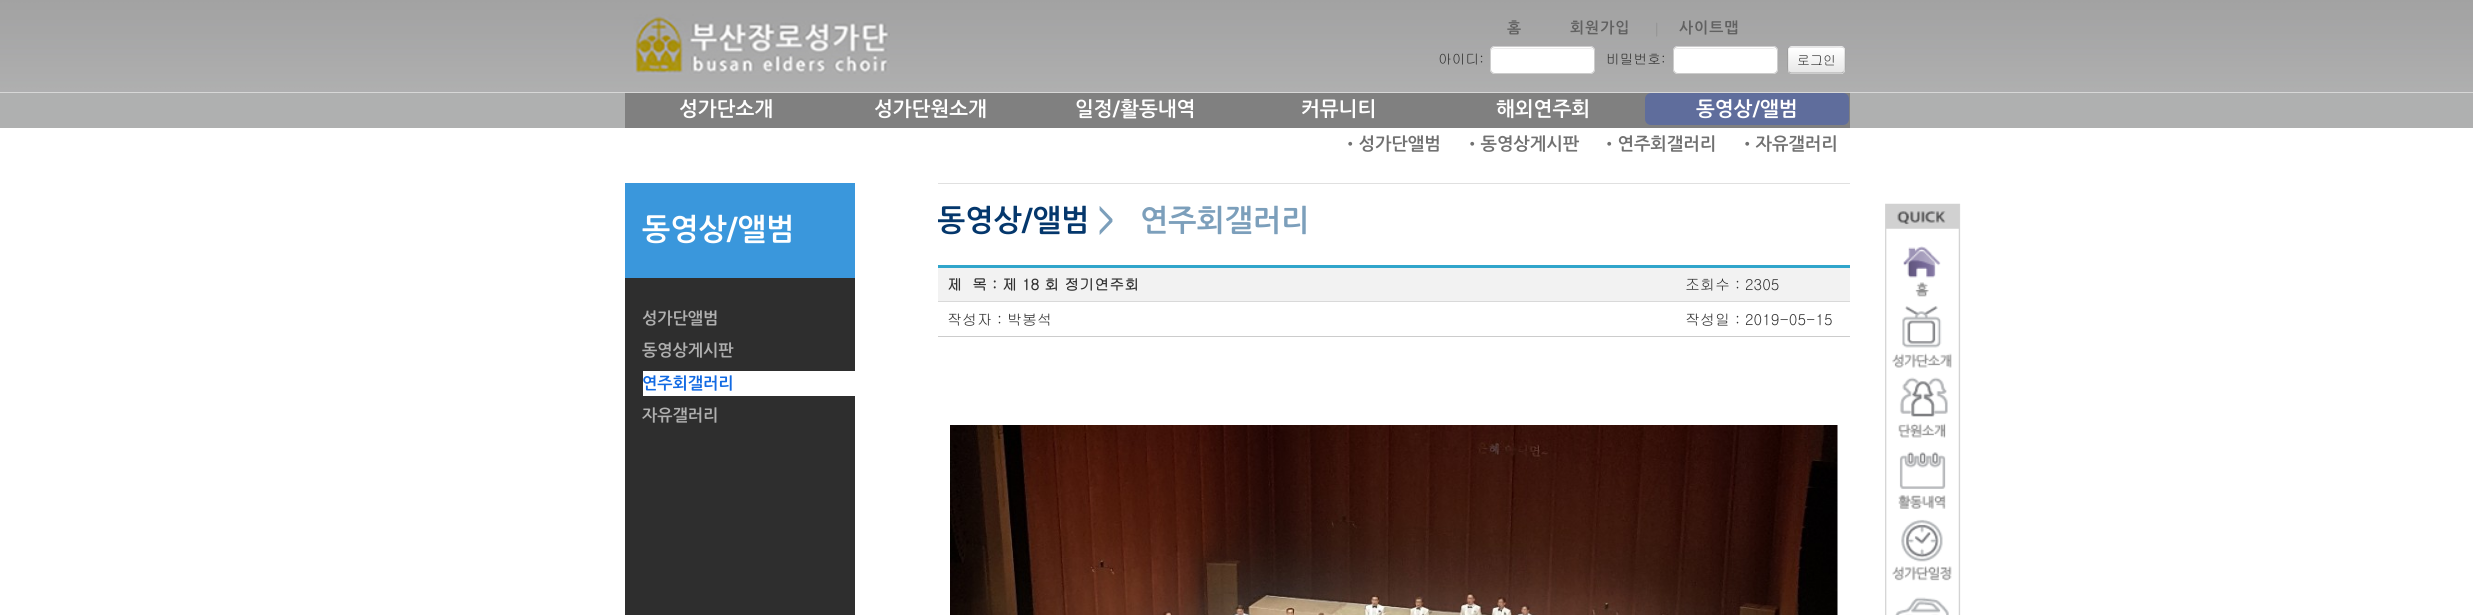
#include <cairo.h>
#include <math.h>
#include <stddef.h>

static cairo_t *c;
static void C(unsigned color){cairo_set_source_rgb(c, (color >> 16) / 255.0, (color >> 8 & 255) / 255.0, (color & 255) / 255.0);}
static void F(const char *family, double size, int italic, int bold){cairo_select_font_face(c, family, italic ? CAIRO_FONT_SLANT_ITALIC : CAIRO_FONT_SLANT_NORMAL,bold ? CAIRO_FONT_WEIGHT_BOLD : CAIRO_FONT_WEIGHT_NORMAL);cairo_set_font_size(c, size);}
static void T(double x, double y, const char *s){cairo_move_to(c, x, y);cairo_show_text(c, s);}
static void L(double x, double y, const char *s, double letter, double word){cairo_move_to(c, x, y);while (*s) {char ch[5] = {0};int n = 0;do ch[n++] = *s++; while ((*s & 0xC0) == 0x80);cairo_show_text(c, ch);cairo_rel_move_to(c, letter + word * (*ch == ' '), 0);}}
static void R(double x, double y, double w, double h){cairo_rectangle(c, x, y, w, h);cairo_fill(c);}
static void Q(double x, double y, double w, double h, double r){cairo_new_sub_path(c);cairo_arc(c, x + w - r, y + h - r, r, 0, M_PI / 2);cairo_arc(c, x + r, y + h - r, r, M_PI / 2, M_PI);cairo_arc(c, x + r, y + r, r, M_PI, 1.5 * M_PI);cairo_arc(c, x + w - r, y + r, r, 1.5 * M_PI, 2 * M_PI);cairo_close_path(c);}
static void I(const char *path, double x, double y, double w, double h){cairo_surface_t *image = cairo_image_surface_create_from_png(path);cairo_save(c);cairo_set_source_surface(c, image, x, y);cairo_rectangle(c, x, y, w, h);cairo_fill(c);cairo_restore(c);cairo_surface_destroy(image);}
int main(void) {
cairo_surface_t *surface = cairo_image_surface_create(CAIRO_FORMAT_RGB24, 2473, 615);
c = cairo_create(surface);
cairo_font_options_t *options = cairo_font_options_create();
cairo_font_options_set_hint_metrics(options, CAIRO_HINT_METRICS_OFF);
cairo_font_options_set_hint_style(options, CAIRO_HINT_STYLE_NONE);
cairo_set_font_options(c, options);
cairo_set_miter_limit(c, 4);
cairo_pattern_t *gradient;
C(0xffffff);
cairo_paint(c);
I("1.png",0,0,2473,93);
I("2.png",633,14,257,61);
F("NanumGothic",15,0,1);
C(0x616161);
L(1507,33,"홈",1,0);
L(1570,33,"회원가입",1,0);
F("Gulim",15,0,0);
C(0x919191);
T(1653,35,"|");
F("NanumGothic",15,0,1);
C(0x616161);
L(1679,33,"사이트맵",1,0);
F("Gulim",13.75,0,0);
C(0x313131);
T(1438,64,"아이디:");
C(0xffffff);
Q(1490,46,105,28,5);
cairo_fill(c);
C(0xececec);
cairo_new_path(c);
cairo_move_to(c,1495,49);
cairo_line_to(c,1590,49);
cairo_curve_to(c,1592,49,1594,50,1594,52);
cairo_curve_to(c,1594,50,1592,48,1590,48);
cairo_line_to(c,1495,48);
cairo_curve_to(c,1493,48,1491,50,1491,52);
cairo_curve_to(c,1491,50,1493,49,1495,49);
cairo_close_path(c);
cairo_fill(c);
Q(1490.5,46.5,104,27,4.5);
C(0xcccccc);
cairo_set_line_width(c,1);
cairo_stroke(c);
C(0x313131);
T(1606,64,"비밀번호:");
C(0xffffff);
Q(1673,46,105,28,5);
cairo_fill(c);
C(0xececec);
cairo_new_path(c);
cairo_move_to(c,1678,49);
cairo_line_to(c,1774,49);
cairo_line_to(c,1776,50);
cairo_curve_to(c,1775,49,1774,48,1772,48);
cairo_line_to(c,1678,48);
cairo_curve_to(c,1676,48,1675,49,1674,50);
cairo_curve_to(c,1675,49,1676,49,1678,49);
cairo_close_path(c);
cairo_fill(c);
Q(1673.5,46.5,104,27,4.5);
C(0xcccccc);
cairo_stroke(c);
C(0xf5f5f5);
Q(1788,46,57,28,4);
cairo_fill(c);
cairo_save(c);
Q(1788,46,57,28,4);
cairo_clip(c);
gradient = cairo_pattern_create_linear(1816,48,1816,73);
cairo_pattern_add_color_stop_rgba(gradient,0,1,1,1,1);
cairo_pattern_add_color_stop_rgba(gradient,1,0.902,0.902,0.902,1);
cairo_set_source(c,gradient);
cairo_pattern_destroy(gradient);
R(1788,48,57,25);
cairo_restore(c);
C(0xffffff);
cairo_new_path(c);
cairo_move_to(c,1791,49);
cairo_line_to(c,1841,49);
cairo_curve_to(c,1843,49,1844,50,1844,51);
cairo_curve_to(c,1844,46,1836,48,1833,48);
cairo_line_to(c,1800,48);
cairo_curve_to(c,1797,48,1789,46,1789,51);
cairo_curve_to(c,1789,50,1790,49,1791,49);
cairo_close_path(c);
cairo_fill(c);
cairo_new_path(c);
cairo_move_to(c,1843.5,72);
cairo_line_to(c,1841.5,73);
cairo_line_to(c,1791,73);
cairo_line_to(c,1789,72);
C(0xb3b3b3);
cairo_set_line_width(c,1.2);
cairo_stroke(c);
cairo_new_path(c);
cairo_move_to(c,1789,72);
cairo_curve_to(c,1787,70,1788,62.5,1788,60);
cairo_curve_to(c,1788,46,1785.5,47,1799.5,47);
cairo_line_to(c,1833,47);
cairo_curve_to(c,1847,47,1844.5,46,1844.5,60);
cairo_curve_to(c,1844.5,62.5,1845.5,70,1843.5,72);
cairo_set_source_rgba(c,0,0,0,0.1);
cairo_stroke(c);
F("Gulim",13,0,0);
C(0x313131);
T(1797,65,"로그인");
C(0xafb0b0);
R(0,93,2473,35);
C(0x808080);
R(625,93,1225,35);
F("NanumGothic",20,0,1);
C(0xffffff);
T(679,116,"성가단소개");
T(874,116,"성가단원소개");
T(1075,116,"일정/활동내역");
T(1301,116,"커뮤니티");
C(0x5f6d9c);
Q(1645,93,204,32,6);
cairo_fill(c);
C(0xffffff);
T(1696,116,"동영상/앨범");
F("NanumGothic",17.5,0,1);
C(0x717171);
T(1342,150,"•성가단앨범");
T(1464,150,"•동영상게시판");
T(1601,150,"•연주회갤러리");
T(1739,150,"•자유갤러리");
F("NanumGothic",20,0,1);
C(0xffffff);
T(1496,116,"해외연주회");
C(0x2e2e2e);
R(625,278,230,337);
C(0x3a97dc);
R(625,183,230,95);
F("NanumGothic",30,0,1);
C(0xffffff);
T(642,240,"동영상/앨범");
F("NanumGothic",16.25,0,1);
C(0xafafaf);
T(642,324,"성가단앨범");
T(642,356,"동영상게시판");
C(0xffffff);
R(643,371,212,25);
C(0x116ae3);
T(642,389,"연주회갤러리");
C(0xafafaf);
T(642,421,"자유갤러리");
C(0xe0e0e0);
R(938,183,912,1);
cairo_save(c);
cairo_rectangle(c,938,184,912,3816);
cairo_clip(c);
F("NanumGothic",30,0,1);
C(0x04376c);
T(937,231,"동영상/앨범");
cairo_restore(c);
F("NanumGothic",30,0,1);
C(0x7c9fbb);
T(1098,231,">");
T(1140,231,"연주회갤러리");
C(0xf2f2f2);
R(938,268,912,33);
F("Gulim",15,0,1);
C(0x313131);
T(947,290,"제  목 : 제 18 회 정기연주회");
C(0xd9d9d9);
R(938,301,912,1);
C(0x30a5cb);
R(938,265,912,3);
F("Gulim",15,0,0);
C(0x313131);
T(1685,290,"조회수 : 2305");
T(947,325,"작성자 : 박봉석");
C(0xcccccc);
R(938,336,912,1);
C(0x313131);
T(1685,325,"작성일 : 2019-05-15");
I("3.png",950,425,888,190);
I("4.png",1885,203,76,412);
cairo_surface_write_to_png(surface, "o.png");
cairo_font_options_destroy(options);
cairo_destroy(c);
cairo_surface_destroy(surface);
return 0;
}
